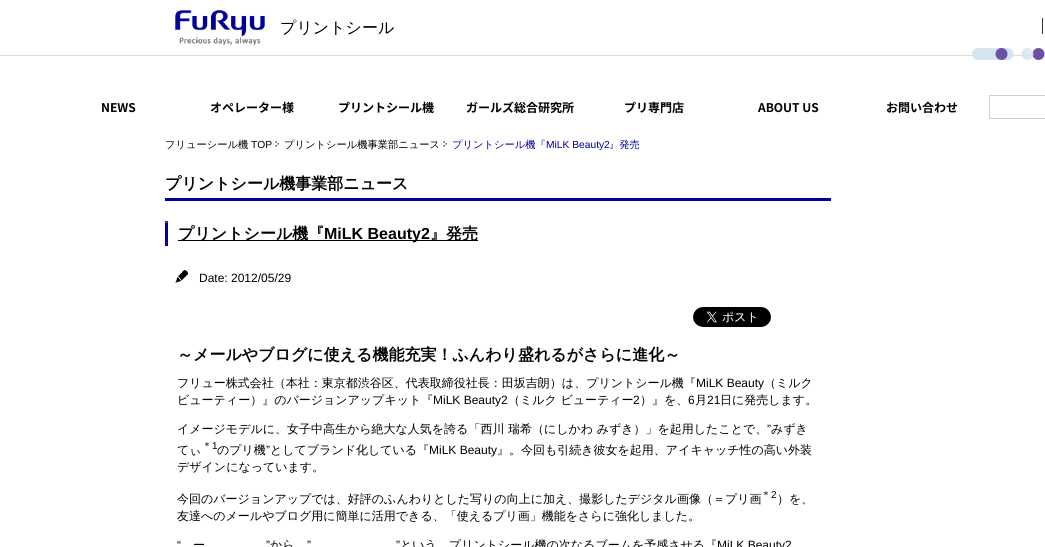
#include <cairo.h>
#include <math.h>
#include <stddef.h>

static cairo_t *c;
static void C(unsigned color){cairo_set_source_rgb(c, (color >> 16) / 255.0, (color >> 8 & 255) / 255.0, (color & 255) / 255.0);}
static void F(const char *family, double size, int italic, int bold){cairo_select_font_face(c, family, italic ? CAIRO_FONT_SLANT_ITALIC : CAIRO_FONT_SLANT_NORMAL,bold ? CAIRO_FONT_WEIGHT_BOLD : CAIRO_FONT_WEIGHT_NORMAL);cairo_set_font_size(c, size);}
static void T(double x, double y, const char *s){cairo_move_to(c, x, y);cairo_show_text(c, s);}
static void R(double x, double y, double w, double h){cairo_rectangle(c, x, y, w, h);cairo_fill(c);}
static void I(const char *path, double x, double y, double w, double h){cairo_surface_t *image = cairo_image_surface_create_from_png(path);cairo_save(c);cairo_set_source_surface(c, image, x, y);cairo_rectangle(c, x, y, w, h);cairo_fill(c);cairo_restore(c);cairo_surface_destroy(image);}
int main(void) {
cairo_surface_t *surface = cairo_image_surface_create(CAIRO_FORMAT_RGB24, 1045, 547);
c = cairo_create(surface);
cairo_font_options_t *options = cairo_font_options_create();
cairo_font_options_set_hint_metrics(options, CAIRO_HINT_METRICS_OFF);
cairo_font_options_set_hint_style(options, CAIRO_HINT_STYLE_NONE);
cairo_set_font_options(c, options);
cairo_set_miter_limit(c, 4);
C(0xffffff);
cairo_paint(c);
C(0xdddddd);
R(0,55,1045,1);
I("1.png",175,10,90,35);
F("WenQuanYi Zen Hei Medium",16,0,0);
C(0x000000);
T(280,33,"プリントシール");
C(0x333333);
R(1042,18,1,16);
I("2.png",972,48,73,12);
F("Noto Sans JP",12,0,1);
C(0x000000);
T(101,112,"NEWS");
T(210,112,"オペレーター様");
T(338,112,"プリントシール機");
T(466,112,"ガールズ総合研究所");
T(624,112,"プリ専門店");
T(758,112,"ABOUT US");
T(886,112,"お問い合わせ");
cairo_rectangle(c,989.5,95.5,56,23);
C(0xd1d1d1);
cairo_set_line_width(c,1);
cairo_stroke(c);
I("3.png",275,141,4,6);
F("WenQuanYi Zen Hei Medium",10.25,0,0);
C(0x000000);
T(165,148,"フリューシール機");
F("Liberation Sans",10.25,0,0);
T(251,148,"TOP");
I("3.png",443,141,4,6);
F("WenQuanYi Zen Hei Medium",10.25,0,0);
T(284,148,"プリントシール機事業部ニュース");
C(0x000099);
T(452,148,"プリントシール機『");
F("Liberation Sans",10.25,0,0);
T(546,148,"MiLK Beauty2");
F("WenQuanYi Zen Hei Medium",10.25,0,0);
T(609,148,"』発売");
R(165,198,666,3);
F("WenQuanYi Zen Hei",16,0,1);
C(0x000000);
T(165,189,"プリントシール機事業部ニュース");
I("4.png",165,221,3,25);
R(178,240,300,1);
T(178,239,"プリントシール機『");
F("Liberation Sans",16,0,1);
T(324,239,"MiLK Beauty2");
F("WenQuanYi Zen Hei",16,0,1);
T(430,239,"』発売");
I("5.png",175,270,13,13);
F("Liberation Sans",12,0,0);
T(199,282,"Date: 2012/05/29");
I("6.png",693,307,78,20);
F("WenQuanYi Zen Hei",16,0,1);
T(177,360,"～メールやブログに使える機能充実！ふんわり盛れるがさらに進化～");
F("WenQuanYi Zen Hei Medium",12,0,0);
T(177,387,"フリュー株式会社（本社：東京都渋谷区、代表取締役社長：田坂吉朗）は、プリントシール機『");
F("Liberation Sans",12,0,0);
T(696,387,"MiLK Beauty");
F("WenQuanYi Zen Hei Medium",12,0,0);
T(764,387,"（ミルク");
T(177,404,"ビューティー）』のバージョンアップキット『");
F("Liberation Sans",12,0,0);
T(433,404,"MiLK Beauty2");
F("WenQuanYi Zen Hei Medium",12,0,0);
T(508,404,"（ミルク ビューティー");
F("Liberation Sans",12,0,0);
T(633,404,"2");
F("WenQuanYi Zen Hei Medium",12,0,0);
T(640,404,"）』を、");
F("Liberation Sans",12,0,0);
T(688,404,"6");
F("WenQuanYi Zen Hei Medium",12,0,0);
T(695,404,"月");
F("Liberation Sans",12,0,0);
T(707,404,"21");
F("WenQuanYi Zen Hei Medium",12,0,0);
T(720,404,"日に発売します。");
T(177,433,"イメージモデルに、女子中高生から絶大な人気を誇る「西川 瑞希（にしかわ みずき）」を起用したことで、");
F("Liberation Sans",12,0,0);
T(767,433,"”");
F("WenQuanYi Zen Hei Medium",12,0,0);
T(771,433,"みずき");
T(177,454,"てぃ");
F("WenQuanYi Zen Hei Medium",10,0,0);
T(202,449,"＊");
F("Liberation Sans",10,0,0);
T(212,449,"1");
F("WenQuanYi Zen Hei Medium",12,0,0);
T(217,454,"のプリ機");
F("Liberation Sans",12,0,0);
T(266,454,"”");
F("WenQuanYi Zen Hei Medium",12,0,0);
T(270,454,"としてブランド化している『");
F("Liberation Sans",12,0,0);
T(429,454,"MiLK Beauty");
F("WenQuanYi Zen Hei Medium",12,0,0);
T(497,454,"』。今回も引続き彼女を起用、アイキャッチ性の高い外装");
T(177,471,"デザインになっています。");
T(177,503,"今回のバージョンアップでは、好評のふんわりとした写りの向上に加え、撮影したデジタル画像（＝プリ画");
F("WenQuanYi Zen Hei Medium",10,0,0);
T(761,498,"＊");
F("Liberation Sans",10,0,0);
T(771,498,"2");
F("WenQuanYi Zen Hei Medium",12,0,0);
T(777,503,"）を、");
T(177,520,"友達へのメールやブログ用に簡単に活用できる、「使えるプリ画」機能をさらに強化しました。");
F("Liberation Sans",12,0,0);
T(177,549,"“");
F("WenQuanYi Zen Hei Medium",12,0,0);
T(193,549,"ー");
F("Liberation Sans",12,0,0);
T(266,549,"”");
F("WenQuanYi Zen Hei Medium",12,0,0);
T(270,549,"から");
F("Liberation Sans",12,0,0);
T(307,549,"”");
T(396,549,"”");
F("WenQuanYi Zen Hei Medium",12,0,0);
T(400,549,"という、プリントシール機の次なるブームを予感させる『");
F("Liberation Sans",12,0,0);
T(717,549,"MiLK Beauty2");
cairo_surface_write_to_png(surface, "o.png");
cairo_font_options_destroy(options);
cairo_destroy(c);
cairo_surface_destroy(surface);
return 0;
}
